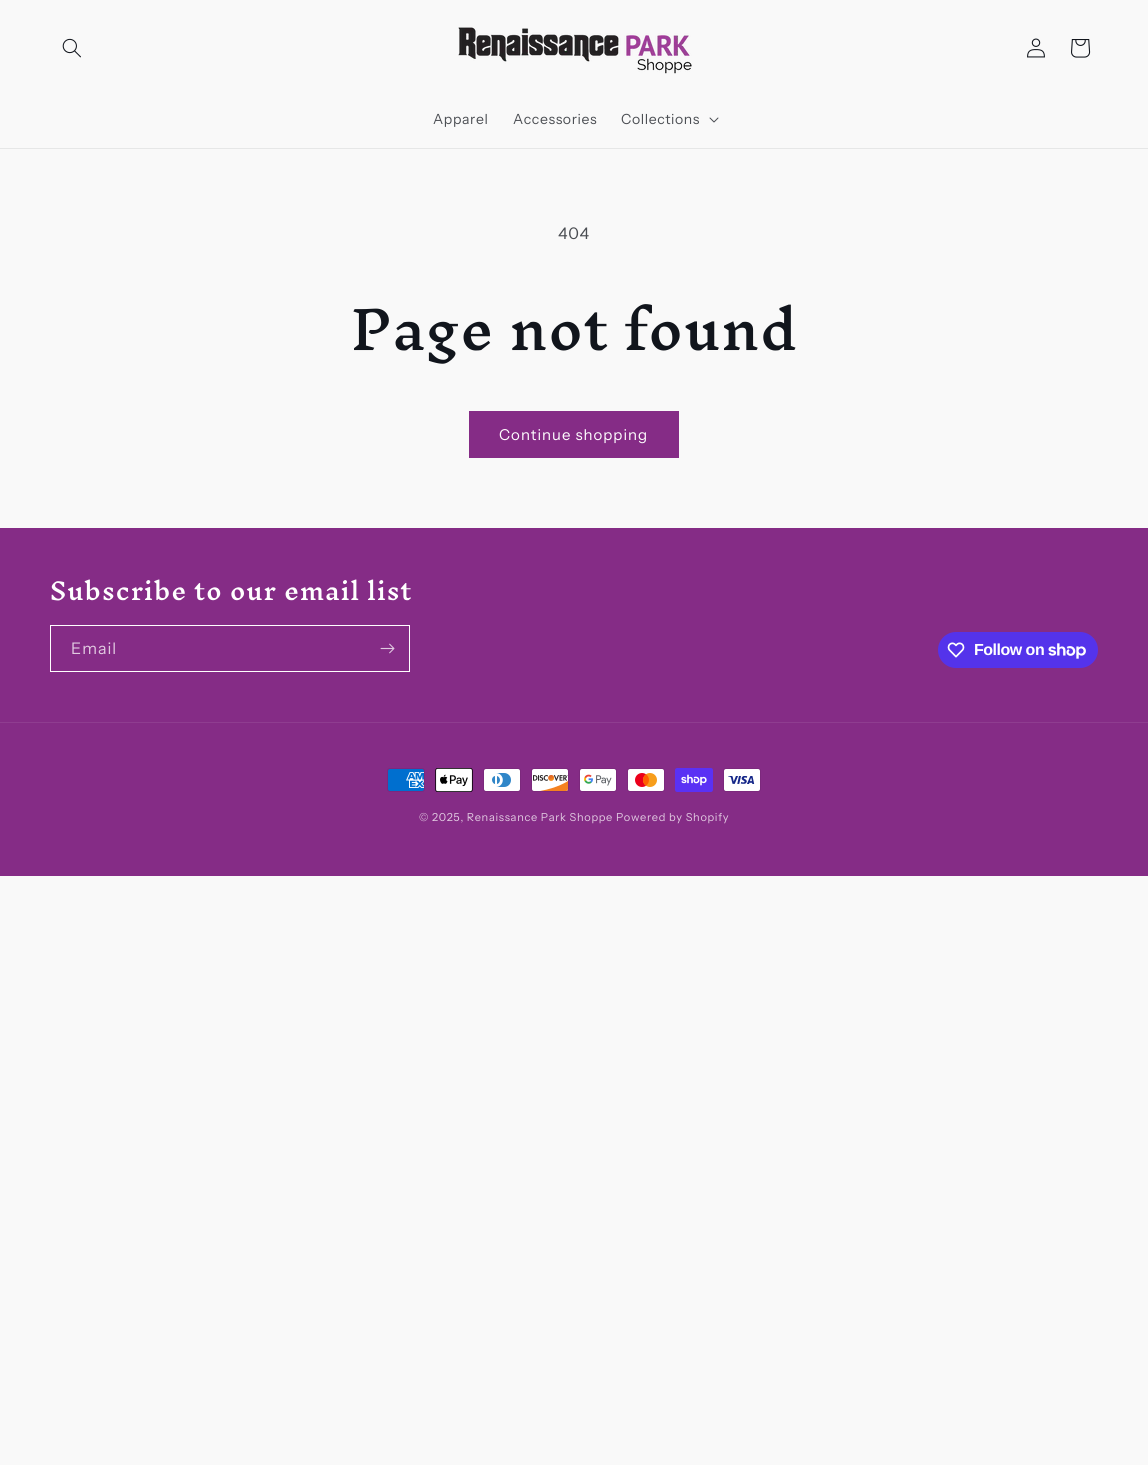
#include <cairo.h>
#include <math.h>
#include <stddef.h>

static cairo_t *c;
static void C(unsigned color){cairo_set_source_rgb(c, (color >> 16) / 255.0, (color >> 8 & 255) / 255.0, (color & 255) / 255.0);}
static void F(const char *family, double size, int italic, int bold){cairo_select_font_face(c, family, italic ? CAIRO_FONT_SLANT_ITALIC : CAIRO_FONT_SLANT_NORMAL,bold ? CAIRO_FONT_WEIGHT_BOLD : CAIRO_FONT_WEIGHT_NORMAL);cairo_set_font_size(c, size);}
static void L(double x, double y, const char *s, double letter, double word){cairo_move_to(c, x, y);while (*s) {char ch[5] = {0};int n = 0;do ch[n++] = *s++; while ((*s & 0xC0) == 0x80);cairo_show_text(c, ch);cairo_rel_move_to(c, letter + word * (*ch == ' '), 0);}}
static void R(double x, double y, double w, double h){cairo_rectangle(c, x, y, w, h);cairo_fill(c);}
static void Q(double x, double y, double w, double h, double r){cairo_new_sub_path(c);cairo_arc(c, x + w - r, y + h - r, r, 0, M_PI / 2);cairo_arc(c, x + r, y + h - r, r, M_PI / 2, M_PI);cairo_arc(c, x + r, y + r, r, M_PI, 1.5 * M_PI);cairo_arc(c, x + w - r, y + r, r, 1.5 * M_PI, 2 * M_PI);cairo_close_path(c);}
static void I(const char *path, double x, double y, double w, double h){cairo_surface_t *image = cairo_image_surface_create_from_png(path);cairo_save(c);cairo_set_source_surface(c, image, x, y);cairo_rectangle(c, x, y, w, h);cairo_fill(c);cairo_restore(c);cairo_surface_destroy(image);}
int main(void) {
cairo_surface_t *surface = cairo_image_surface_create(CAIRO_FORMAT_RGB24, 1148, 1465);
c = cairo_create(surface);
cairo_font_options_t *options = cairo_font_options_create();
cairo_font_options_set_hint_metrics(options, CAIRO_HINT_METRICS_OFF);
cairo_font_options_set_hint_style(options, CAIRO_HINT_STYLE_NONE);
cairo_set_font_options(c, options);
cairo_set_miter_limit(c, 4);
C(0xf9f9f9);
cairo_paint(c);
C(0xe6e7e7);
R(0,148,1148,1);
I("1.png",62,38,19,20);
I("2.png",458,27,234,47);
I("3.png",1027,38,18,20);
I("4.png",1071,39,20,19);
F("Instrument Sans",14,0,0);
C(0x4b4e53);
L(433,124,"Apparel",.6,0);
L(513,124,"Accessories",.6,0);
L(621,124,"Collections",.6,0);
I("5.png",709,117,10,6);
F("Instrument Sans",16,0,0);
L(558,239,"404",.6,0);
F("Inknut Antiqua Medium",52,0,0);
C(0x11151c);
L(351,350,"Page not found",.75,0);
C(0x852c86);
R(469,411,210,47);
F("Instrument Sans",15,0,0);
C(0xffffff);
L(499,440,"Continue shopping",1,0);
C(0x852c86);
R(0,528,1148,348);
F("Inknut Antiqua Medium",23.4,0,0);
C(0xffffff);
L(50,600,"Subscribe to our email list",.75,0);
cairo_rectangle(c,50.5,625.5,359,46);
cairo_set_line_width(c,1);
cairo_stroke(c);
F("Instrument Sans",16,0,0);
C(0xe1cae1);
L(71,654,"Email",1,0);
I("6.png",380,643,15,11);
C(0x5433eb);
Q(938,632,160,36,18);
cairo_fill(c);
I("7.png",947,642,18,16);
F("Liberation Sans",16,0,1);
C(0xffffff);
L(974,655,"Follow on",-.5,0);
I("8.png",1048,643,38,16);
C(0x8f3d90);
R(0,722,1148,1);
I("9.png",387,768,38,24);
I("10.png",435,768,38,24);
I("11.png",483,768,38,24);
I("12.png",531,768,38,24);
I("13.png",579,768,38,24);
I("14.png",627,768,38,24);
I("15.png",675,768,38,24);
I("16.png",723,768,38,24);
F("Instrument Sans",11,0,0);
C(0xe1cae1);
L(419,821,"© 2025, Renaissance Park Shoppe Powered by Shopify",.7,0);
cairo_surface_write_to_png(surface, "o.png");
cairo_font_options_destroy(options);
cairo_destroy(c);
cairo_surface_destroy(surface);
return 0;
}
